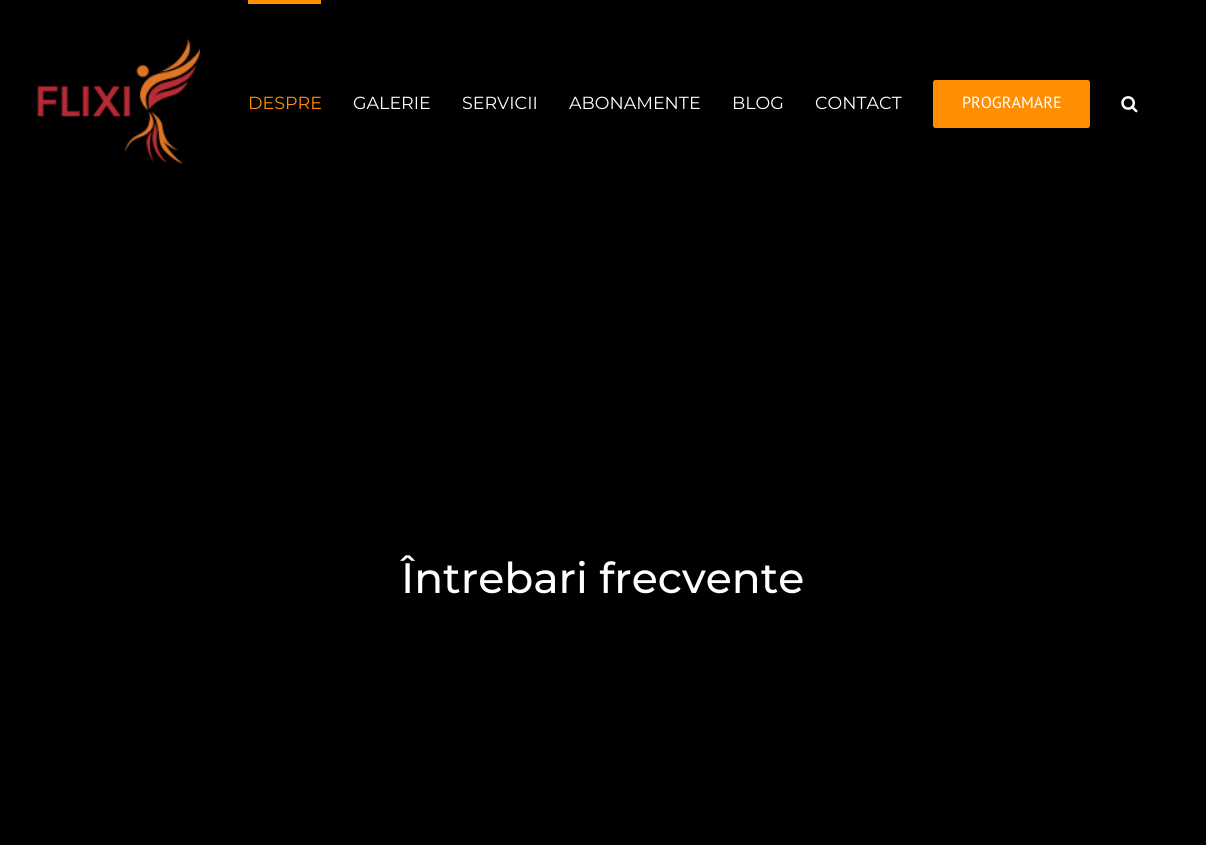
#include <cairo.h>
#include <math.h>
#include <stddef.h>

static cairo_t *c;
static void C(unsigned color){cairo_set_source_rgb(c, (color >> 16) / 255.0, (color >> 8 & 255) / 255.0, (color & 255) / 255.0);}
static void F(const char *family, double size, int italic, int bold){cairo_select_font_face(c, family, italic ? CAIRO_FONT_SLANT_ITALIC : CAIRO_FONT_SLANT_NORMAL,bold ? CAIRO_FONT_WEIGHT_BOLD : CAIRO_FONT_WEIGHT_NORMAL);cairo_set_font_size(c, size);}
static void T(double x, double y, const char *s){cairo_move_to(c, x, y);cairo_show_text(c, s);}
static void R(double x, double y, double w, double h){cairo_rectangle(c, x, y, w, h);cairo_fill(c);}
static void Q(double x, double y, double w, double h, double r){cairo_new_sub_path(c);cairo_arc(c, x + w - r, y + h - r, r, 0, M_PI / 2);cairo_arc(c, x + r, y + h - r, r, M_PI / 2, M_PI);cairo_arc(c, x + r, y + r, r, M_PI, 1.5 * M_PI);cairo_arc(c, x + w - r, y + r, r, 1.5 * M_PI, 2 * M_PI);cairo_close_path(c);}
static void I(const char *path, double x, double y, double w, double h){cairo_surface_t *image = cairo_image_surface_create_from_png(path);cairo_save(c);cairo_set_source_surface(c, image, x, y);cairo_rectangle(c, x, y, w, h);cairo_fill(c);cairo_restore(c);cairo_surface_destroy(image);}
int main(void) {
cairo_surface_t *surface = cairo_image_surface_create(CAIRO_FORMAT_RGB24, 1206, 845);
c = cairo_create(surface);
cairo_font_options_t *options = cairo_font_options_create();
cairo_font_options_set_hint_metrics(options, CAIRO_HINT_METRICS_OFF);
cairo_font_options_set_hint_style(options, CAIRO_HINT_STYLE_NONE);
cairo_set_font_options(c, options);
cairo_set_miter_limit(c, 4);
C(0x000000);
cairo_paint(c);
I("1.png",37,38,163,126);
C(0xff8f00);
R(248,0,73,4);
F("Montserrat",17.5,0,0);
T(248,109,"DESPRE");
C(0xffffff);
T(353,109,"GALERIE");
T(462,109,"SERVICII");
T(569,109,"ABONAMENTE");
T(732,109,"BLOG");
T(815,109,"CONTACT");
C(0xff8f00);
Q(933,80,157,48,2.5);
cairo_fill(c);
F("PT Sans",16.25,0,0);
C(0xffffff);
T(962,108,"PROGRAMARE");
I("2.png",1121,96,17,17);
F("Montserrat Medium",42.5,0,0);
T(401,593,"Întrebari frecvente");
cairo_surface_write_to_png(surface, "o.png");
cairo_font_options_destroy(options);
cairo_destroy(c);
cairo_surface_destroy(surface);
return 0;
}
